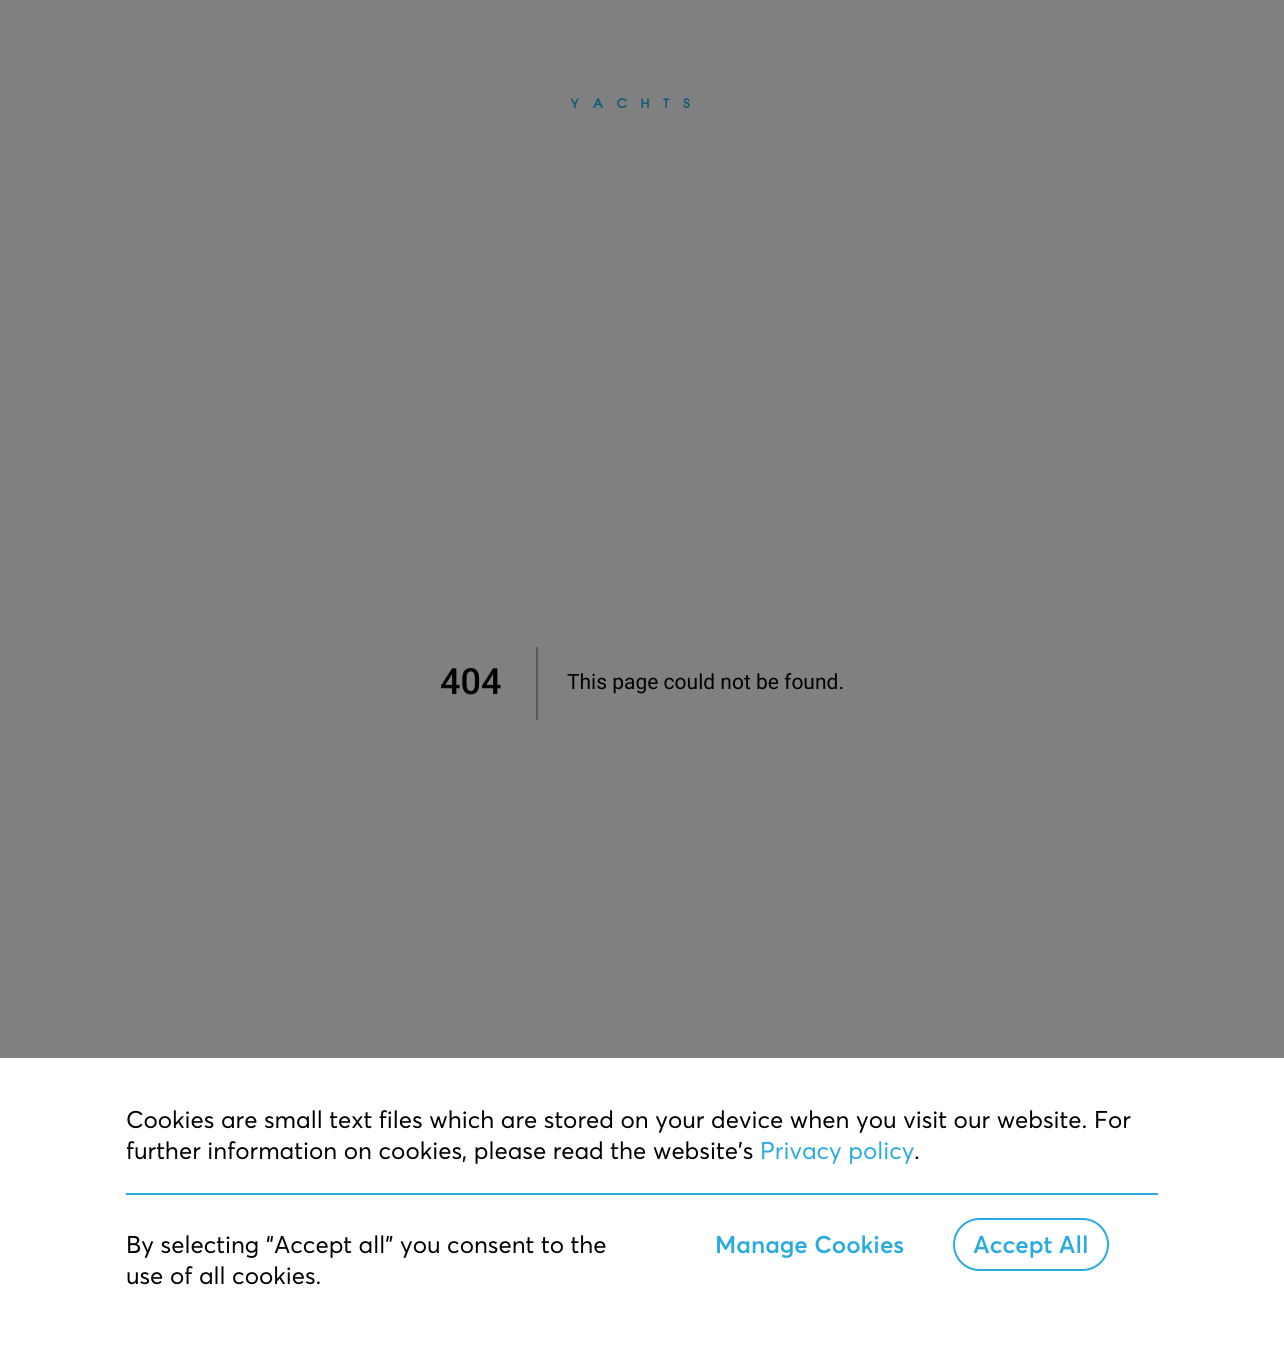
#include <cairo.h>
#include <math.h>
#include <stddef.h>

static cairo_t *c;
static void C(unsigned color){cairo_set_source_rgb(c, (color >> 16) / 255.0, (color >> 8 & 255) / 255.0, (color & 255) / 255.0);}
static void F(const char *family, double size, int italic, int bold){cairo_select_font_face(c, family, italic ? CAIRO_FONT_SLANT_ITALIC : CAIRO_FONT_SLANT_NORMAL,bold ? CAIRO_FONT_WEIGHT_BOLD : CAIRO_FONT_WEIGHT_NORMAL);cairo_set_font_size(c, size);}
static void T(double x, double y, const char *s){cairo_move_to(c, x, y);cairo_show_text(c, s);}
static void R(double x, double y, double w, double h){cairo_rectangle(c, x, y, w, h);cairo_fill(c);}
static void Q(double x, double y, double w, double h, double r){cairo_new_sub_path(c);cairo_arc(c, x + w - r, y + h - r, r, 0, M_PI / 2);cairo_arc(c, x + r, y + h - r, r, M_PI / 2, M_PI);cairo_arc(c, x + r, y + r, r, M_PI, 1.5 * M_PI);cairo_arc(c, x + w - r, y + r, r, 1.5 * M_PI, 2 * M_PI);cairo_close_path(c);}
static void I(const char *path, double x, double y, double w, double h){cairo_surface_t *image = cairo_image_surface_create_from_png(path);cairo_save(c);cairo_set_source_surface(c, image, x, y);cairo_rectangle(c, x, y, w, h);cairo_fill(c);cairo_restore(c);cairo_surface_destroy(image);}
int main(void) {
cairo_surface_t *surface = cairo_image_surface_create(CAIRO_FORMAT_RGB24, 1284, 1364);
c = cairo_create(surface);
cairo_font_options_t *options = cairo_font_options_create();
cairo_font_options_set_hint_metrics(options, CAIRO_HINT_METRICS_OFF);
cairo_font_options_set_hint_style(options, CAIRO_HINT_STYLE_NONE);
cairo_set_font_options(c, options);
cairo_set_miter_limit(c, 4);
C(0x808080);
cairo_paint(c);
I("1.png",570,98,120,10);
C(0x5a5a5a);
R(536,647,2,73);
F("Roboto Medium",36,0,0);
C(0x000000);
T(440,694,"404");
F("Roboto",21,0,0);
T(567,689,"This page could not be found.");
C(0xffffff);
R(0,1058,1284,306);
C(0x29abe2);
R(126,1193,1032,2);
F("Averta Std",24,0,0);
C(0x000000);
T(126,1128,"Cookies are small text files which are stored on your device when you visit our website. For");
T(126,1159,"further information on cookies, please read the website’s");
C(0x29abe2);
T(760,1159,"Privacy policy");
C(0x000000);
T(914,1159,".");
T(126,1253,"By selecting “Accept all” you consent to the");
T(126,1284,"use of all cookies.");
F("Averta Std SemiBold",24,0,0);
C(0x29abe2);
T(715,1253,"Manage Cookies");
Q(954,1219,154,51,25.5);
cairo_stroke(c);
T(973,1253,"Accept All");
cairo_surface_write_to_png(surface, "o.png");
cairo_font_options_destroy(options);
cairo_destroy(c);
cairo_surface_destroy(surface);
return 0;
}
